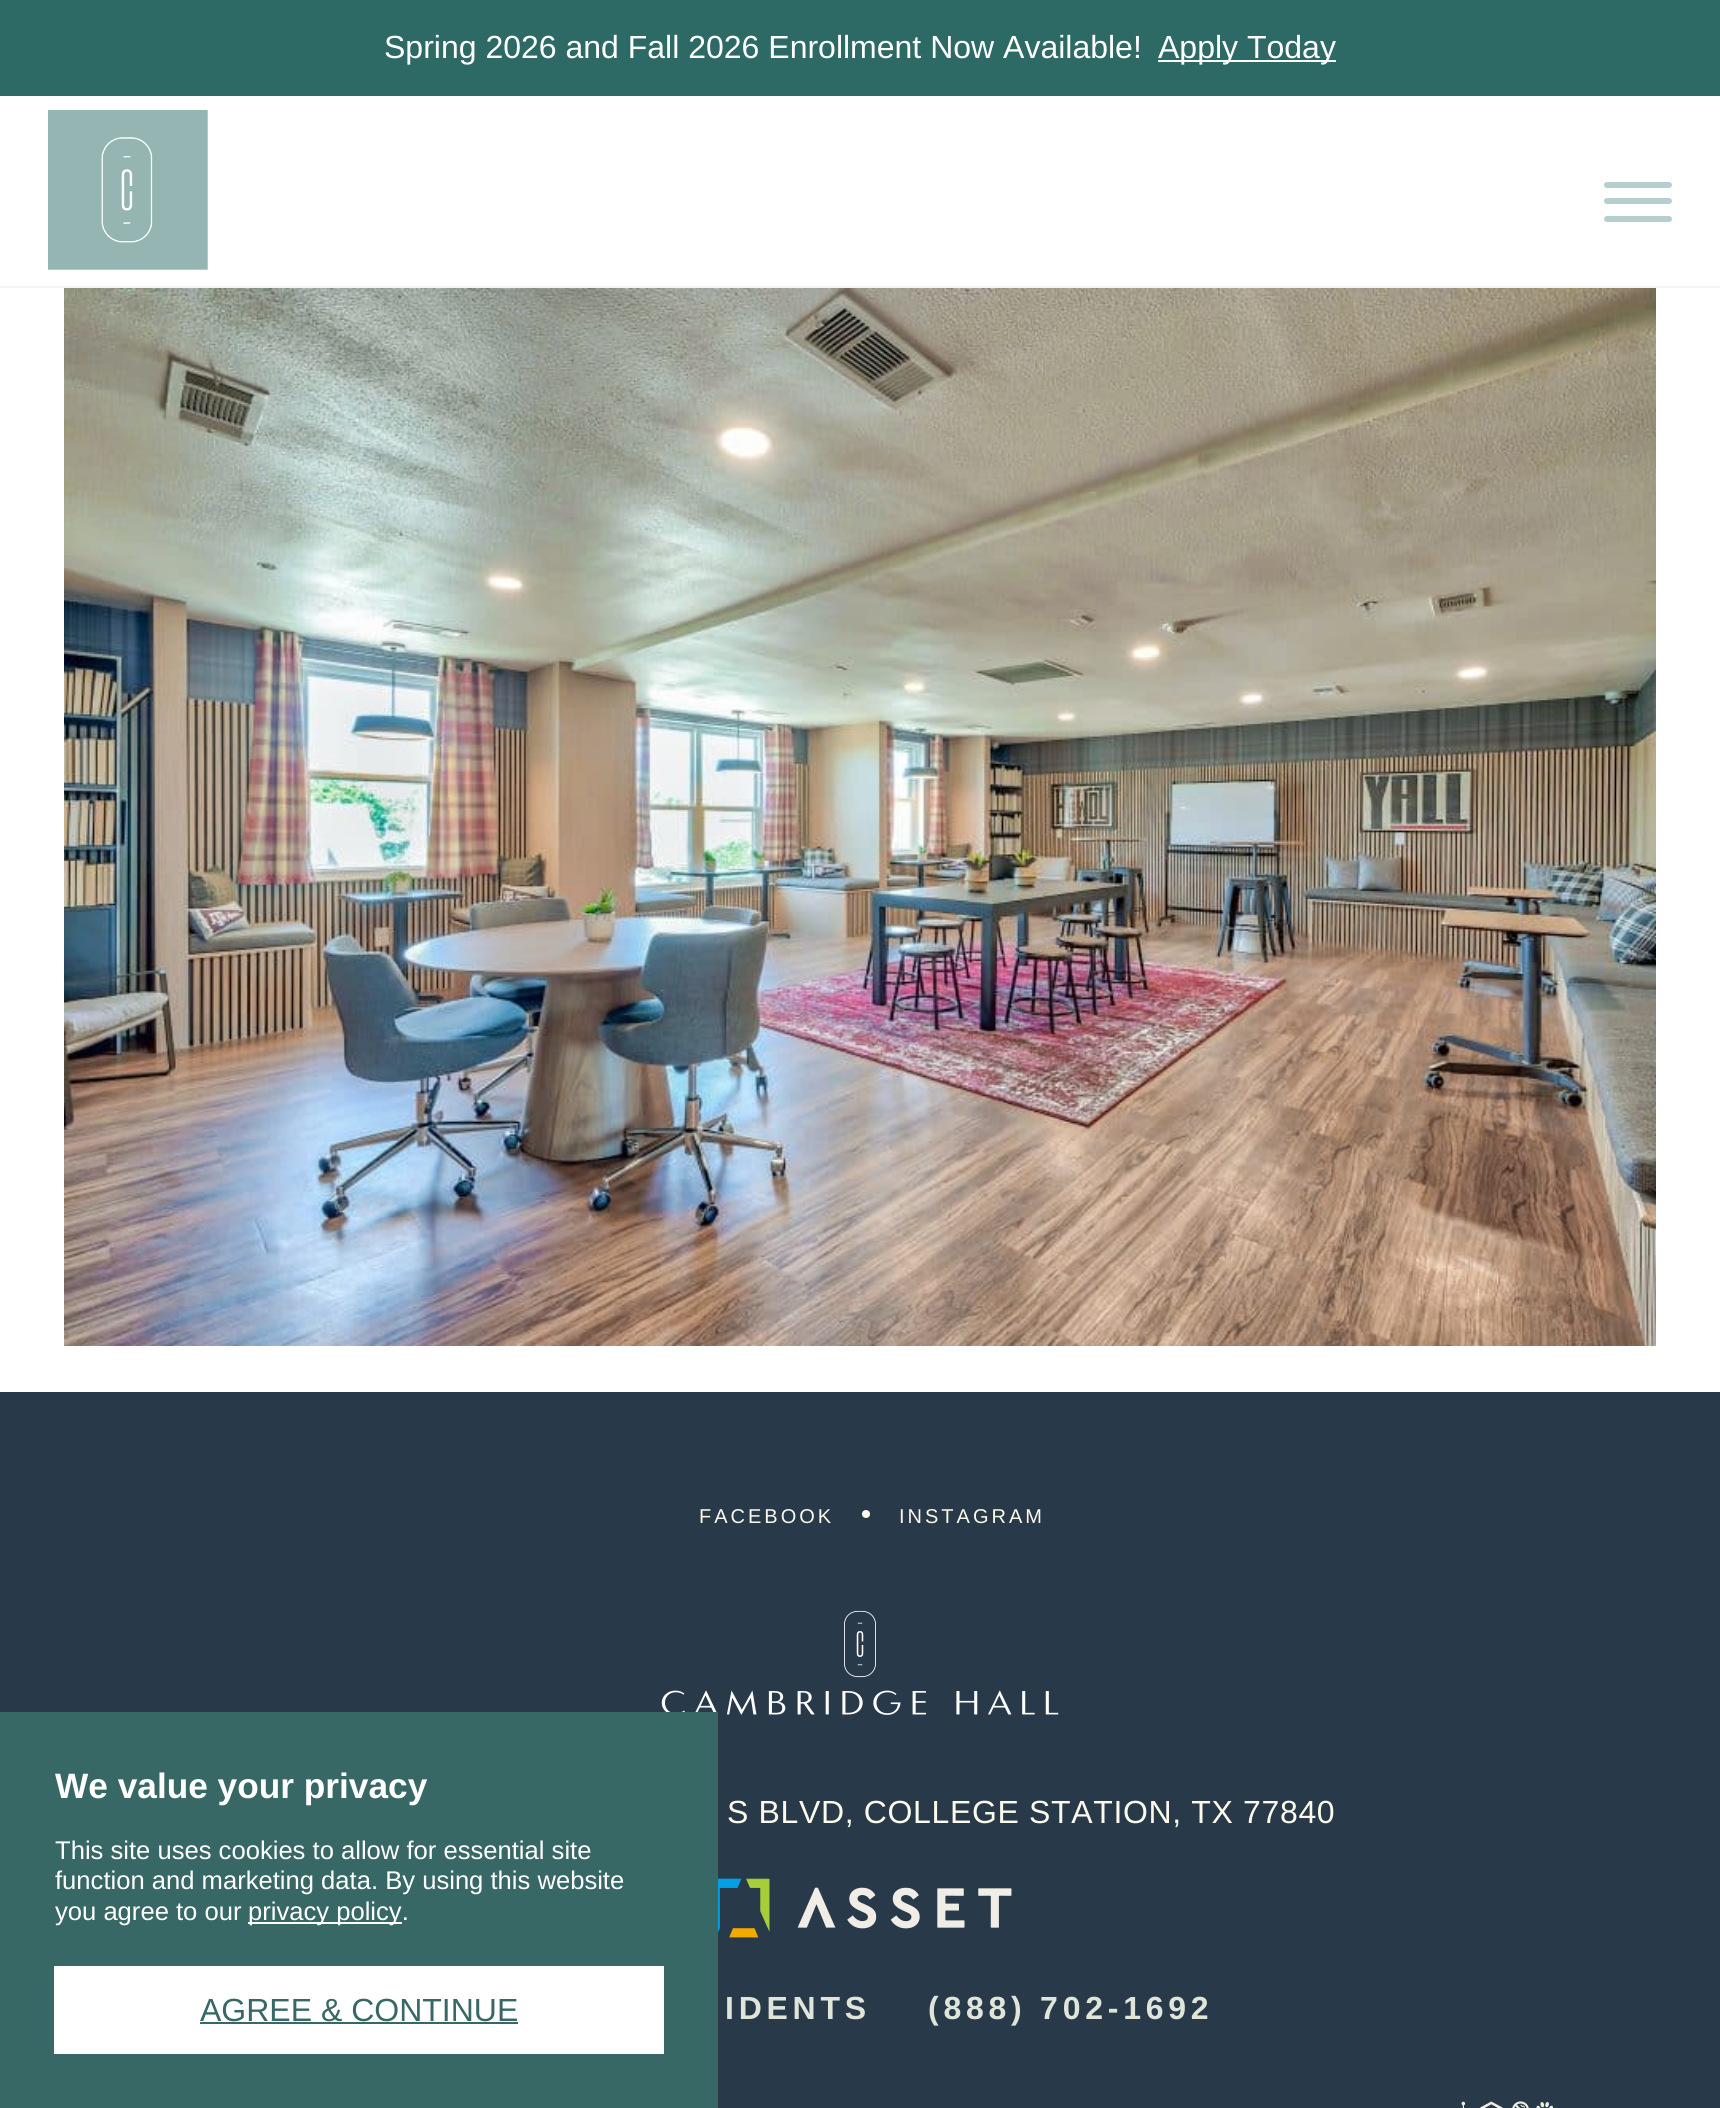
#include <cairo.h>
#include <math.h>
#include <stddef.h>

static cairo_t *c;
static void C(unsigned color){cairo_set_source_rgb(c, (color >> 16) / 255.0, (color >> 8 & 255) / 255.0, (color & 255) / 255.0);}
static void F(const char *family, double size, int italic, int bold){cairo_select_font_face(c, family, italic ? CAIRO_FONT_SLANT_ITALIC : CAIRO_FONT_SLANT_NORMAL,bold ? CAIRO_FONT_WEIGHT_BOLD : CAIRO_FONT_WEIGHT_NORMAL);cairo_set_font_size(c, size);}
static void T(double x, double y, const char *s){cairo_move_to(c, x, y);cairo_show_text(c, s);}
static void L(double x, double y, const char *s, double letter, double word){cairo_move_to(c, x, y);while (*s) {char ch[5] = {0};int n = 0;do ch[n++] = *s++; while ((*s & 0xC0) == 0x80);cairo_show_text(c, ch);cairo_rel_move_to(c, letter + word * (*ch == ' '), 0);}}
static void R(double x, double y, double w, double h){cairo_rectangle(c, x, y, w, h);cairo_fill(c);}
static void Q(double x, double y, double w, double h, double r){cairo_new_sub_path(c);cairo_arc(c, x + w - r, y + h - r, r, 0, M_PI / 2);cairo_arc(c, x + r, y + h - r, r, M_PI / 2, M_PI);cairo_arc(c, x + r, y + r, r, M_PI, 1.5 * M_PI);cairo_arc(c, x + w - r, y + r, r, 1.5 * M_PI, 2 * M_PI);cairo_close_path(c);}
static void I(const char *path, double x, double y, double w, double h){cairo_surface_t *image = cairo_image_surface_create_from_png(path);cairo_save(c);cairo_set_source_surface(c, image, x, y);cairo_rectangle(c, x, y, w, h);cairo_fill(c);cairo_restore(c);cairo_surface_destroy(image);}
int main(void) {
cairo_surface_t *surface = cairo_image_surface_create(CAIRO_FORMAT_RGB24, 1720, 2108);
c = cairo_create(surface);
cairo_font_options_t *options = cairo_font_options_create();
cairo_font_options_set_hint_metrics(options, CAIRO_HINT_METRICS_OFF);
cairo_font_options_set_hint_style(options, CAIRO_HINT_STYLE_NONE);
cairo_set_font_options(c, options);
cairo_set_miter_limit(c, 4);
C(0xffffff);
cairo_paint(c);
C(0x2d6965);
R(0,0,1720,96);
F("Liberation Sans",32,0,0);
C(0xffffff);
T(384,58,"Spring 2026 and Fall 2026 Enrollment Now Available!");
R(1158,60,178,2);
T(1158,58,"Apply Today");
C(0xf2f2f2);
R(0,286,1720,2);
I("1.png",48,110,160,160);
C(0xb6ced0);
Q(1604,182,68,6,3);
cairo_fill(c);
Q(1604,198,68,6,3);
cairo_fill(c);
Q(1604,216,68,6,3);
cairo_fill(c);
I("2.png",64,288,1592,1058);
C(0x283949);
R(0,1392,1720,674);
I("3.png",661,1610,398,105);
C(0x376866);
R(0,1712,718,396);
F("Liberation Sans",35.25,0,1);
C(0xffffff);
T(55,1798,"We value your privacy");
F("Liberation Sans",25.6,0,0);
T(55,1859,"This site uses cookies to allow for essential site");
T(55,1889,"function and marketing data. By using this website");
T(55,1920,"you agree to our");
R(248,1922,154,2);
T(248,1920,"privacy policy.");
R(54,1966,610,88);
F("Liberation Sans",32,0,0);
C(0x376866);
T(200,2021,"AGREE & CONTINUE");
R(200,2022,318,2);
F("Liberation Sans",20,0,0);
C(0xfcfaeb);
L(699,1523,"FACEBOOK",3,0);
cairo_new_path(c);
cairo_arc(c,866,1514,4,0,2 * M_PI);
cairo_fill(c);
L(899,1523,"INSTAGRAM",3,0);
F("Liberation Sans",32,0,0);
L(727,1823,"S BLVD, COLLEGE STATION, TX 77840",.65,0);
I("4.png",718,1878,294,60);
F("Liberation Sans",32,0,1);
C(0xdfe5d8);
L(725,2019,"IDENTS",4.75,0);
L(928,2019,"(888) 702-1692",4.75,0);
C(0x283949);
R(718,2066,1002,42);
I("5.png",1461,2101,92,7);
cairo_surface_write_to_png(surface, "o.png");
cairo_font_options_destroy(options);
cairo_destroy(c);
cairo_surface_destroy(surface);
return 0;
}
